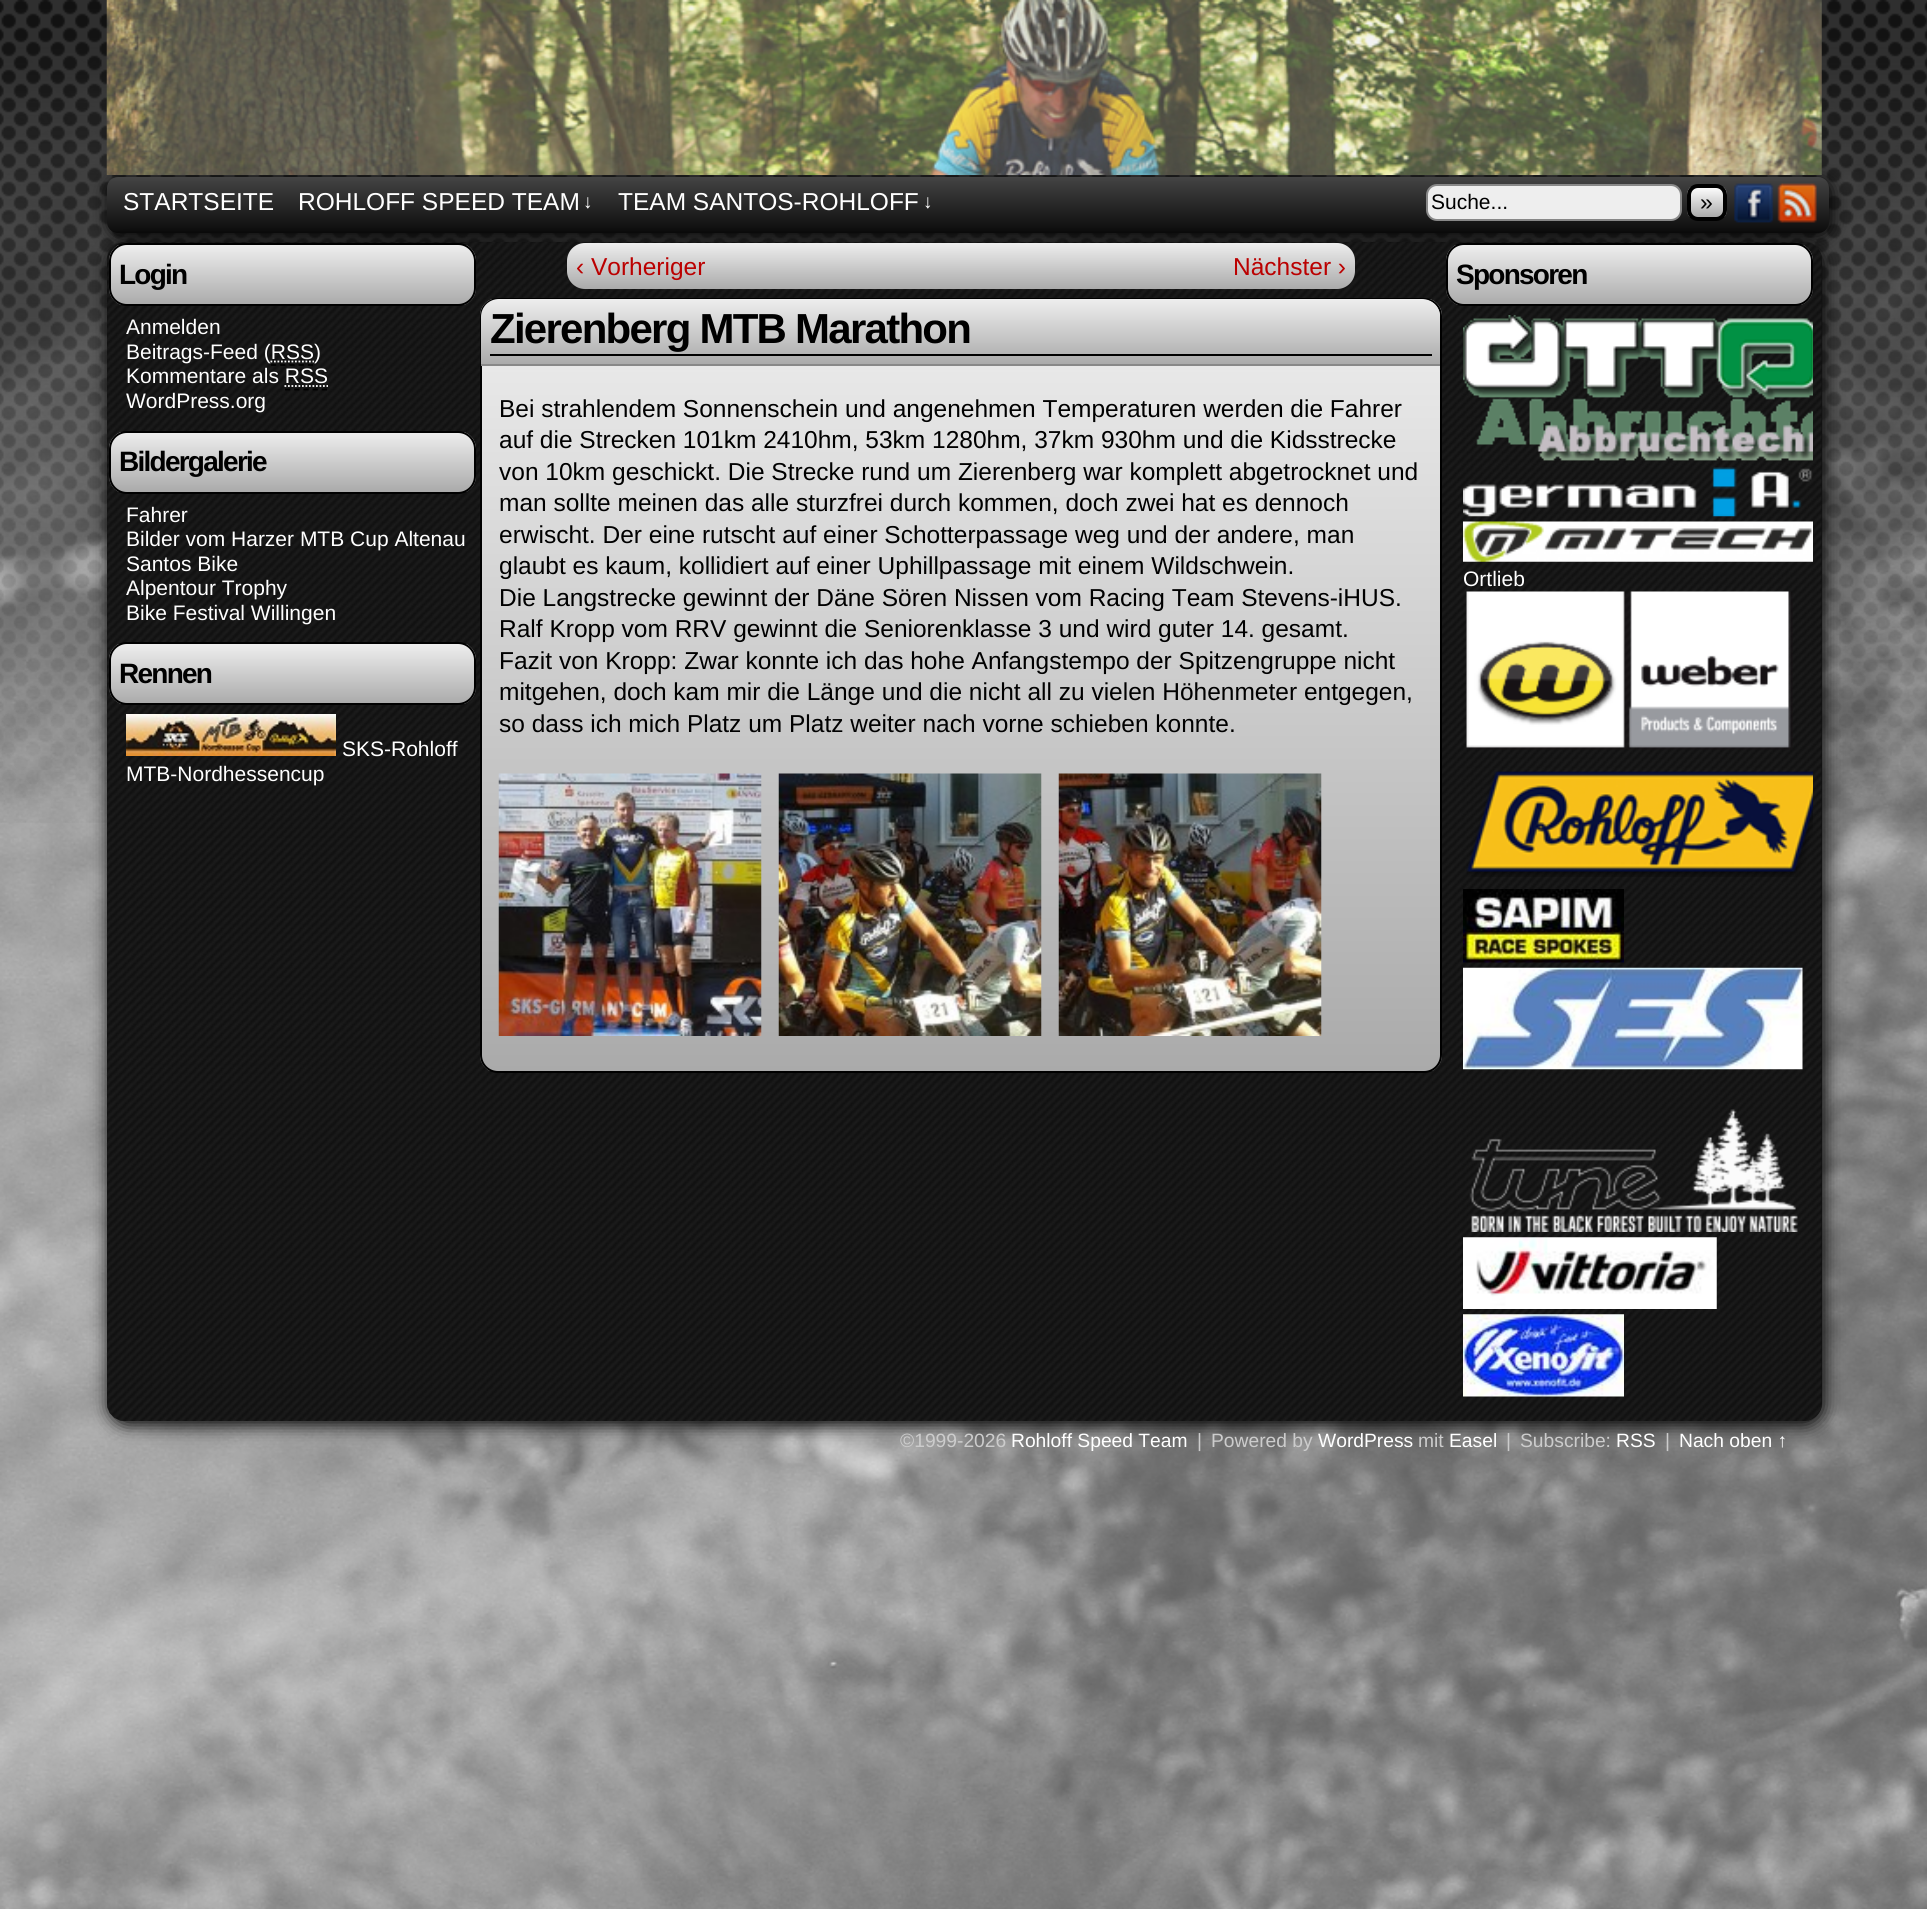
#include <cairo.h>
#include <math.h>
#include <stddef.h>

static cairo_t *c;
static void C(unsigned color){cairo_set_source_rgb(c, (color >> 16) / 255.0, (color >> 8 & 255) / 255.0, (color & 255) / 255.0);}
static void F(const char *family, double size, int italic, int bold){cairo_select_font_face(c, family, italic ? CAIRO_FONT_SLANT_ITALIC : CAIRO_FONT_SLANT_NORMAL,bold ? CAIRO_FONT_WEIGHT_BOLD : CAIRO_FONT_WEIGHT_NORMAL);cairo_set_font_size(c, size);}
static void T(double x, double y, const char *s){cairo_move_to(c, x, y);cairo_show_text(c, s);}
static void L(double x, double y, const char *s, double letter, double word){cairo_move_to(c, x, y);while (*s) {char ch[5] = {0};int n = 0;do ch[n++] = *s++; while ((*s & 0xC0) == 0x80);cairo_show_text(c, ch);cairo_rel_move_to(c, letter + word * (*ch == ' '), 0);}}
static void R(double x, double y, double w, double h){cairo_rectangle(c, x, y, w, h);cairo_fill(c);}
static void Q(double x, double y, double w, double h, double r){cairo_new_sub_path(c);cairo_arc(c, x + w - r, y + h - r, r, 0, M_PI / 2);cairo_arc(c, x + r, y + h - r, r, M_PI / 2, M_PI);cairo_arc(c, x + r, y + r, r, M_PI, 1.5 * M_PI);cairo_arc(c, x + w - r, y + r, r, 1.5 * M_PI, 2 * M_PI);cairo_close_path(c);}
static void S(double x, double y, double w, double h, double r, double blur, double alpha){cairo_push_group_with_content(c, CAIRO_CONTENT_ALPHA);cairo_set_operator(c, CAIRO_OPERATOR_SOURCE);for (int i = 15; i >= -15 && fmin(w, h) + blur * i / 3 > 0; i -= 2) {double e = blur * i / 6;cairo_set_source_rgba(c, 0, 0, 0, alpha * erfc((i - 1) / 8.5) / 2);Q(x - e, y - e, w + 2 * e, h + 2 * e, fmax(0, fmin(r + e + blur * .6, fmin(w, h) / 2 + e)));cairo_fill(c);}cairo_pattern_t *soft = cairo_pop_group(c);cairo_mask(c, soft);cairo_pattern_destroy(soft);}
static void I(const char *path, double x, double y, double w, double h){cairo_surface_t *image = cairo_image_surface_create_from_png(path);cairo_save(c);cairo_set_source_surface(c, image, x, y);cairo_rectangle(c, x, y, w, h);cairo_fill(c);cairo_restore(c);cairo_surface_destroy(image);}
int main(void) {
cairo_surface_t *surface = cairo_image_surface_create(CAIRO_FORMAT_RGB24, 1927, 1909);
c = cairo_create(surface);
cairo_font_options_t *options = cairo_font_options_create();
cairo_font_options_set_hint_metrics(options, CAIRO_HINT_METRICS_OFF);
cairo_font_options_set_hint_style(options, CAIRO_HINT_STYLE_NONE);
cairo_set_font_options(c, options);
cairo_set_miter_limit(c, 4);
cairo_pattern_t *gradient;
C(0xffffff);
cairo_paint(c);
I("1.png",0,44,1927,1865);
I("2.png",0,0,1927,823);
C(0x000000);
S(109,180,1722,56,11,9,1);
I("3.png",106,0,1716,175);
gradient = cairo_pattern_create_linear(107,177,107,233);
cairo_pattern_add_color_stop_rgba(gradient,0,0.267,0.267,0.267,1);
cairo_pattern_add_color_stop_rgba(gradient,1,0.043,0.043,0.043,1);
cairo_set_source(c,gradient);
cairo_pattern_destroy(gradient);
Q(107,177,1722,56,11);
cairo_fill(c);
F("Liberation Sans",24.5,0,0);
C(0xffffff);
T(123,210,"STARTSEITE");
T(298,210,"ROHLOFF SPEED TEAM");
F("Liberation Sans",19.25,0,0);
T(583,208,"↓");
F("Liberation Sans",24.5,0,0);
T(618,210,"TEAM SANTOS-ROHLOFF");
F("Liberation Sans",19.25,0,0);
T(923,208,"↓");
C(0x000000);
S(109,245,1715,1180,18,9,1);
C(0xeeeeee);
Q(1427,185,254,35,10);
cairo_fill_preserve(c);
C(0x888888);
cairo_stroke(c);
F("Liberation Sans",21,0,0);
C(0x000000);
T(1431,209,"Suche...");
cairo_save(c);
Q(1687,184,40,37,11);
cairo_clip(c);
gradient = cairo_pattern_create_linear(1691,187,1691,217);
cairo_pattern_add_color_stop_rgba(gradient,0,1,1,1,1);
cairo_pattern_add_color_stop_rgba(gradient,1,0.667,0.667,0.667,1);
cairo_set_source(c,gradient);
cairo_pattern_destroy(gradient);
R(1687,187,40,30);
cairo_restore(c);
Q(1689,186,36,33,9);
cairo_set_line_width(c,4);
cairo_stroke(c);
F("Liberation Sans",23,0,0);
T(1700,210,"»");
I("4.png",1734,183,40,40);
I("5.png",1777,183,40,40);
C(0x111111);
Q(107,242,1715,1179,18);
cairo_fill(c);
I("6.png",106,241,1716,1180);
cairo_save(c);
Q(109,243,367,63,18);
cairo_clip(c);
gradient = cairo_pattern_create_linear(110,245,110,305);
cairo_pattern_add_color_stop_rgba(gradient,0,0.933,0.933,0.933,1);
cairo_pattern_add_color_stop_rgba(gradient,1,0.667,0.667,0.667,1);
cairo_set_source(c,gradient);
cairo_pattern_destroy(gradient);
R(109,245,367,60);
cairo_restore(c);
Q(110,244,365,61,17);
C(0x000000);
cairo_set_line_width(c,2);
cairo_stroke(c);
F("Liberation Sans",28,0,1);
L(119,284,"Login",-1.75,0);
F("Liberation Sans",21,0,0);
C(0xffffff);
T(126,334,"Anmelden");
T(126,359,"Beitrags-Feed (RSS)");
cairo_new_path(c);
cairo_move_to(c,271,365);
cairo_line_to(c,313,365);
C(0x000000);
cairo_set_line_width(c,1.8);
cairo_set_dash(c,(double[]){5.25,3.94},2,0);
cairo_stroke(c);
cairo_new_path(c);
cairo_move_to(c,270.5,361.5);
cairo_line_to(c,314,361.5);
C(0xffffff);
cairo_set_dash(c,(double[]){1.75,1.75},2,0);
cairo_stroke(c);
T(126,383,"Kommentare als RSS");
cairo_new_path(c);
cairo_move_to(c,285,389.5);
cairo_line_to(c,327,389.5);
C(0x000000);
cairo_set_dash(c,(double[]){5.25,3.94},2,0);
cairo_stroke(c);
cairo_new_path(c);
cairo_move_to(c,284.5,386);
cairo_line_to(c,328,386);
C(0xffffff);
cairo_set_dash(c,(double[]){1.75,1.75},2,0);
cairo_stroke(c);
T(126,408,"WordPress.org");
cairo_save(c);
Q(109,431,367,63,18);
cairo_clip(c);
gradient = cairo_pattern_create_linear(110,432,110,492);
cairo_pattern_add_color_stop_rgba(gradient,0,0.933,0.933,0.933,1);
cairo_pattern_add_color_stop_rgba(gradient,1,0.667,0.667,0.667,1);
cairo_set_source(c,gradient);
cairo_pattern_destroy(gradient);
R(109,432,367,60);
cairo_restore(c);
Q(110,432,365,61,17);
C(0x000000);
cairo_set_line_width(c,2);
cairo_set_dash(c,NULL,0,0);
cairo_stroke(c);
F("Liberation Sans",28,0,1);
L(119,471,"Bildergalerie",-1.75,0);
F("Liberation Sans",21,0,0);
C(0xffffff);
T(126,522,"Fahrer");
T(126,546,"Bilder vom Harzer MTB Cup Altenau");
T(126,571,"Santos Bike");
T(126,595,"Alpentour Trophy");
T(126,620,"Bike Festival Willingen");
cairo_save(c);
Q(109,642,367,63,18);
cairo_clip(c);
gradient = cairo_pattern_create_linear(110,644,110,704);
cairo_pattern_add_color_stop_rgba(gradient,0,0.933,0.933,0.933,1);
cairo_pattern_add_color_stop_rgba(gradient,1,0.667,0.667,0.667,1);
cairo_set_source(c,gradient);
cairo_pattern_destroy(gradient);
R(109,644,367,60);
cairo_restore(c);
Q(110,643,365,61,17);
C(0x000000);
cairo_stroke(c);
F("Liberation Sans",28,0,1);
L(119,683,"Rennen",-1.75,0);
I("7.png",126,714,210,42);
F("Liberation Sans",21,0,0);
C(0xffffff);
T(342,756,"SKS-Rohloff");
T(126,781,"MTB-Nordhessencup");
gradient = cairo_pattern_create_linear(567,243,567,289);
cairo_pattern_add_color_stop_rgba(gradient,0,0.933,0.933,0.933,1);
cairo_pattern_add_color_stop_rgba(gradient,1,0.667,0.667,0.667,1);
cairo_set_source(c,gradient);
cairo_pattern_destroy(gradient);
Q(567,243,788,46,18);
cairo_fill(c);
F("Liberation Sans",24.5,0,0);
C(0xbb0000);
T(576,275,"‹ Vorheriger");
T(1233,275,"Nächster ›");
cairo_save(c);
Q(480,298,962,775,18);
cairo_clip(c);
gradient = cairo_pattern_create_linear(481,299,481,1071);
cairo_pattern_add_color_stop_rgba(gradient,0,0.933,0.933,0.933,1);
cairo_pattern_add_color_stop_rgba(gradient,1,0.667,0.667,0.667,1);
cairo_set_source(c,gradient);
cairo_pattern_destroy(gradient);
R(480,299,962,772);
cairo_restore(c);
Q(481,299,960,773,17);
C(0x000000);
cairo_stroke(c);
gradient = cairo_pattern_create_linear(481,299,481,364);
cairo_pattern_add_color_stop_rgba(gradient,0,0.933,0.933,0.933,1);
cairo_pattern_add_color_stop_rgba(gradient,1,0.667,0.667,0.667,1);
cairo_set_source(c,gradient);
cairo_pattern_destroy(gradient);
cairo_new_path(c);
cairo_move_to(c,499,299);
cairo_line_to(c,1422,299);
cairo_curve_to(c,1432,299,1440,307,1440,317);
cairo_line_to(c,1440,364);
cairo_line_to(c,481,364);
cairo_line_to(c,481,317);
cairo_curve_to(c,481,307,489,299,499,299);
cairo_close_path(c);
cairo_fill(c);
C(0x888888);
R(481,364,959,2);
C(0x000000);
R(490,354,942,2);
F("Liberation Sans",42,0,1);
L(490,343,"Zierenberg MTB Marathon",-1.75,0);
F("Liberation Sans",24.5,0,0);
T(499,417,"Bei strahlendem Sonnenschein und angenehmen Temperaturen werden die Fahrer");
T(499,448,"auf die Strecken 101km 2410hm, 53km 1280hm, 37km 930hm und die Kidsstrecke");
T(499,480,"von 10km geschickt. Die Strecke rund um Zierenberg war komplett abgetrocknet und");
T(499,511,"man sollte meinen das alle sturzfrei durch kommen, doch zwei hat es dennoch");
T(499,543,"erwischt. Der eine rutscht auf einer Schotterpassage weg und der andere, man");
T(499,574,"glaubt es kaum, kollidiert auf einer Uphillpassage mit einem Wildschwein.");
T(499,606,"Die Langstrecke gewinnt der Däne Sören Nissen vom Racing Team Stevens-iHUS.");
T(499,637,"Ralf Kropp vom RRV gewinnt die Seniorenklasse 3 und wird guter 14. gesamt.");
T(499,669,"Fazit von Kropp: Zwar konnte ich das hohe Anfangstempo der Spitzengruppe nicht");
T(499,700,"mitgehen, doch kam mir die Länge und die nicht all zu vielen Höhenmeter entgegen,");
T(499,732,"so dass ich mich Platz um Platz weiter nach vorne schieben konnte.");
I("8.png",498,773,264,263);
I("9.png",778,773,264,263);
I("10.png",1058,773,264,263);
cairo_save(c);
Q(1446,243,367,63,18);
cairo_clip(c);
gradient = cairo_pattern_create_linear(1447,245,1447,305);
cairo_pattern_add_color_stop_rgba(gradient,0,0.933,0.933,0.933,1);
cairo_pattern_add_color_stop_rgba(gradient,1,0.667,0.667,0.667,1);
cairo_set_source(c,gradient);
cairo_pattern_destroy(gradient);
R(1446,245,367,60);
cairo_restore(c);
Q(1447,244,365,61,17);
cairo_stroke(c);
F("Liberation Sans",28,0,1);
L(1456,284,"Sponsoren",-1.75,0);
I("11.png",1463,315,350,146);
I("12.png",1463,467,350,50);
I("13.png",1463,521,350,41);
F("Liberation Sans",21,0,0);
C(0xffffff);
T(1463,586,"Ortlieb");
I("14.png",1466,591,327,159);
I("15.png",1466,771,347,106);
I("16.png",1463,889,161,74);
I("17.png",1463,967,340,103);
I("18.png",1469,1109,329,123);
I("19.png",1463,1237,254,72);
I("20.png",1463,1314,161,83);
F("Liberation Sans",19.25,0,0);
C(0xcccccc);
T(900,1447,"©1999-2026");
C(0xffffff);
T(1011,1447,"Rohloff Speed Team");
C(0xcccccc);
T(1197,1447,"|");
T(1211,1447,"Powered by");
C(0xffffff);
T(1318,1447,"WordPress");
C(0xcccccc);
T(1418,1447,"mit");
C(0xffffff);
T(1449,1447,"Easel");
C(0xcccccc);
T(1506,1447,"|");
T(1520,1447,"Subscribe:");
C(0xffffff);
T(1616,1447,"RSS");
C(0xcccccc);
T(1665,1447,"|");
C(0xffffff);
T(1679,1447,"Nach oben ↑");
cairo_surface_write_to_png(surface, "o.png");
cairo_font_options_destroy(options);
cairo_destroy(c);
cairo_surface_destroy(surface);
return 0;
}
